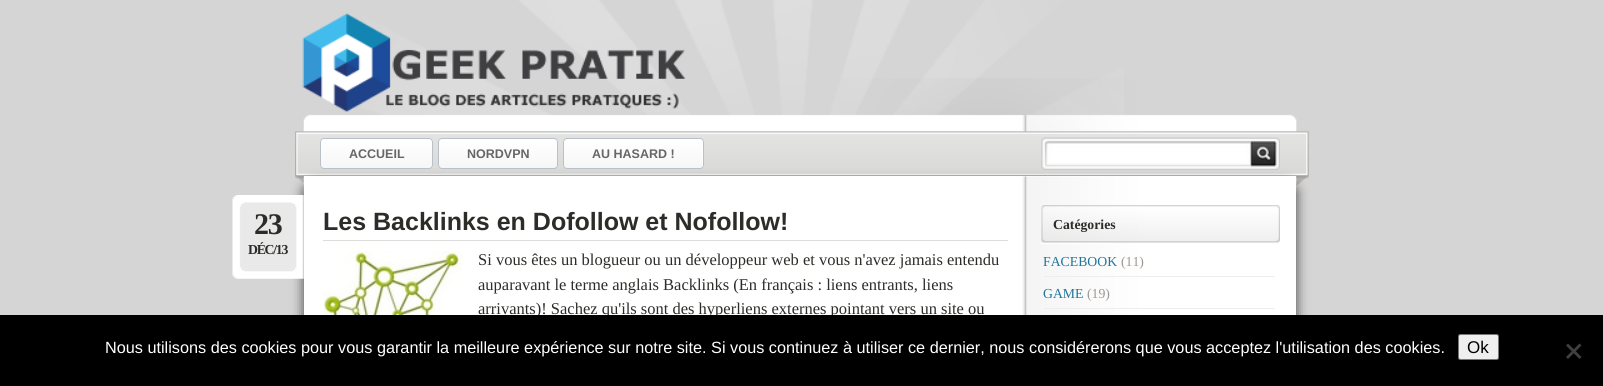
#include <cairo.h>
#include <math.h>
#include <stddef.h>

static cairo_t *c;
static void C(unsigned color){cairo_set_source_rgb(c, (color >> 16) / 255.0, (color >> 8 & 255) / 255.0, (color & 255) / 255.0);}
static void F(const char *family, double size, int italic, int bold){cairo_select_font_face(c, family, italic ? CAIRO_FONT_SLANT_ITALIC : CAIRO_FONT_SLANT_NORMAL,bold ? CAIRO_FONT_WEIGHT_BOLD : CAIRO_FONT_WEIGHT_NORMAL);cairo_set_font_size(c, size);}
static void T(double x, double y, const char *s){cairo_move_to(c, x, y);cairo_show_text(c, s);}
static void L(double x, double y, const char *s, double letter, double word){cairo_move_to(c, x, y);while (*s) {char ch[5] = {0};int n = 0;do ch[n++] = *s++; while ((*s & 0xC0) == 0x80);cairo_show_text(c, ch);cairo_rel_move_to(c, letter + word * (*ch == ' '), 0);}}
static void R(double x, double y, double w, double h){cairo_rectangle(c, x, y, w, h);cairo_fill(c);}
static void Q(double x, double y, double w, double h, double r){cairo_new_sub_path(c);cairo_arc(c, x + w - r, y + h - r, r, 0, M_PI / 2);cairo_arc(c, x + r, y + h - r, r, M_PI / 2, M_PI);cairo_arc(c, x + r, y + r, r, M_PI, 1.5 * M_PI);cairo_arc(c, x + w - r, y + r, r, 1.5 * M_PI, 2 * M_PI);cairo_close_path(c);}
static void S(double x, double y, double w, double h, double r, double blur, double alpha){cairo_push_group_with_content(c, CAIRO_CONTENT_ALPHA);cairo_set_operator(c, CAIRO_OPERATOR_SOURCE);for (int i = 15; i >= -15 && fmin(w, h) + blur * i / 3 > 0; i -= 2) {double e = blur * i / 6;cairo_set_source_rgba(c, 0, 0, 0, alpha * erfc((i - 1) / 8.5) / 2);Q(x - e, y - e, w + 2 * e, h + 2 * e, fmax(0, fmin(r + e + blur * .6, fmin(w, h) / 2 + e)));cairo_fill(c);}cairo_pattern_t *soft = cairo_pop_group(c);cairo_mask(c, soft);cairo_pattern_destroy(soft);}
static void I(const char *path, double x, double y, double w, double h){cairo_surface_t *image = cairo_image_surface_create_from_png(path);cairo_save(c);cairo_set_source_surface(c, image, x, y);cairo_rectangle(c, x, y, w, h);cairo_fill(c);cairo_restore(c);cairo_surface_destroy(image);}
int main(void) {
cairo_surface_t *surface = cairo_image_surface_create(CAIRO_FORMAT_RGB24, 1603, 386);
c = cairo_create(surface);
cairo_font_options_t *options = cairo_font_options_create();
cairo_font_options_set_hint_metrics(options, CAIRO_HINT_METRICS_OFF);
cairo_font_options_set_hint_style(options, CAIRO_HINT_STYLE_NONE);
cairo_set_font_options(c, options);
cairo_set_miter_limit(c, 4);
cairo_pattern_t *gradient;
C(0xd5d5d5);
cairo_paint(c);
I("1.png",362,0,762,116);
I("3.png",295,78,1014,107);
I("2.png",302,13,384,99);
I("4.png",1041,137,239,33);
C(0x000000);
S(304,183,992,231,10,6,.75);
cairo_save(c);
Q(320,138,113,31,4);
cairo_clip(c);
gradient = cairo_pattern_create_linear(376,139,376,168);
cairo_pattern_add_color_stop_rgba(gradient,.05,1,1,1,1);
cairo_pattern_add_color_stop_rgba(gradient,1,0.965,0.965,0.965,1);
cairo_set_source(c,gradient);
cairo_pattern_destroy(gradient);
R(320,139,113,29);
cairo_restore(c);
Q(320.5,138.5,112,30,3.5);
C(0xb9c0ca);
cairo_set_line_width(c,1);
cairo_stroke(c);
F("Liberation Sans",12.5,0,1);
C(0x666666);
T(349,158,"ACCUEIL");
cairo_save(c);
Q(438,138,120,31,4);
cairo_clip(c);
gradient = cairo_pattern_create_linear(498,139,498,168);
cairo_pattern_add_color_stop_rgba(gradient,.05,1,1,1,1);
cairo_pattern_add_color_stop_rgba(gradient,1,0.965,0.965,0.965,1);
cairo_set_source(c,gradient);
cairo_pattern_destroy(gradient);
R(438,139,120,29);
cairo_restore(c);
Q(438.5,138.5,119,30,3.5);
C(0xb9c0ca);
cairo_stroke(c);
C(0x666666);
T(467,158,"NORDVPN");
cairo_save(c);
Q(563,138,141,31,4);
cairo_clip(c);
gradient = cairo_pattern_create_linear(633,139,633,168);
cairo_pattern_add_color_stop_rgba(gradient,.05,1,1,1,1);
cairo_pattern_add_color_stop_rgba(gradient,1,0.965,0.965,0.965,1);
cairo_set_source(c,gradient);
cairo_pattern_destroy(gradient);
R(563,139,141,29);
cairo_restore(c);
C(0xffffff);
cairo_new_path(c);
cairo_move_to(c,566,140);
cairo_line_to(c,700,140);
cairo_curve_to(c,704,140,702,149,702,150);
cairo_line_to(c,702,168);
cairo_curve_to(c,702,167,703,166,703,166);
cairo_line_to(c,703,142);
cairo_curve_to(c,703,140,702,139,700,139);
cairo_line_to(c,566,139);
cairo_curve_to(c,565,139,564,140,564,142);
cairo_curve_to(c,564,141,565,140,566,140);
cairo_close_path(c);
cairo_fill(c);
Q(563.5,138.5,140,30,3.5);
C(0xb9c0ca);
cairo_stroke(c);
C(0x666666);
T(592,158,"AU HASARD !");
C(0xffffff);
R(304,176,992,1);
I("5.png",303,176,994,139);
I("6.png",232,195,72,84);
F("Liberation Serif",30,0,1);
C(0x2c2c29);
L(254,234,"23",-1.25,0);
F("Liberation Serif",13.75,0,1);
L(248,254,"DÉC/13",-1.25,0);
C(0xdcdcdb);
R(323,240,685,1);
F("Liberation Sans",25,0,1);
C(0x2c2c29);
T(323,230,"Les Backlinks en Dofollow et Nofollow!");
I("7.png",323,251,142,64);
F("Liberation Serif",16.5,0,0);
T(478,265,"Si vous êtes un blogueur ou un développeur web et vous n'avez jamais entendu");
T(478,290,"auparavant le terme anglais Backlinks (En français : liens entrants, liens");
T(478,314,"arrivants)! Sachez qu'ils sont des hyperliens externes pointant vers un site ou");
C(0xffffff);
R(1041,205,73,39);
I("8.png",1041,205,239,38);
F("Liberation Serif",13.75,0,1);
C(0x2c2c29);
T(1053,229,"Catégories");
C(0xeeeeee);
R(1044,276,231,1);
F("Liberation Serif",13.75,0,0);
C(0x21759b);
T(1043,266,"FACEBOOK");
C(0x9d9793);
T(1121,266,"(11)");
C(0xeeeeee);
R(1044,308,231,1);
C(0x21759b);
T(1043,298,"GAME");
C(0x9d9793);
T(1087,298,"(19)");
C(0x000000);
R(0,315,1603,71);
F("Liberation Sans",16.25,0,0);
C(0xffffff);
T(105,353,"Nous utilisons des cookies pour vous garantir la meilleure expérience sur notre site. Si vous continuez à utiliser ce dernier, nous considérerons que vous acceptez l'utilisation des cookies.");
C(0xefefef);
Q(1458.5,334.5,40,25,2);
cairo_fill_preserve(c);
C(0x767676);
cairo_stroke(c);
F("Liberation Sans",17,0,0);
C(0x000000);
T(1467,353,"Ok");
C(0x404040);
cairo_new_path(c);
cairo_move_to(c,1579.5,343.5);
cairo_line_to(c,1581.5,345.5);
cairo_line_to(c,1568,359);
cairo_line_to(c,1566,357);
cairo_close_path(c);
cairo_fill(c);
cairo_new_path(c);
cairo_move_to(c,1566,345.5);
cairo_line_to(c,1568,343.5);
cairo_line_to(c,1581.5,357);
cairo_line_to(c,1579.5,359);
cairo_close_path(c);
cairo_fill(c);
cairo_surface_write_to_png(surface, "o.png");
cairo_font_options_destroy(options);
cairo_destroy(c);
cairo_surface_destroy(surface);
return 0;
}
